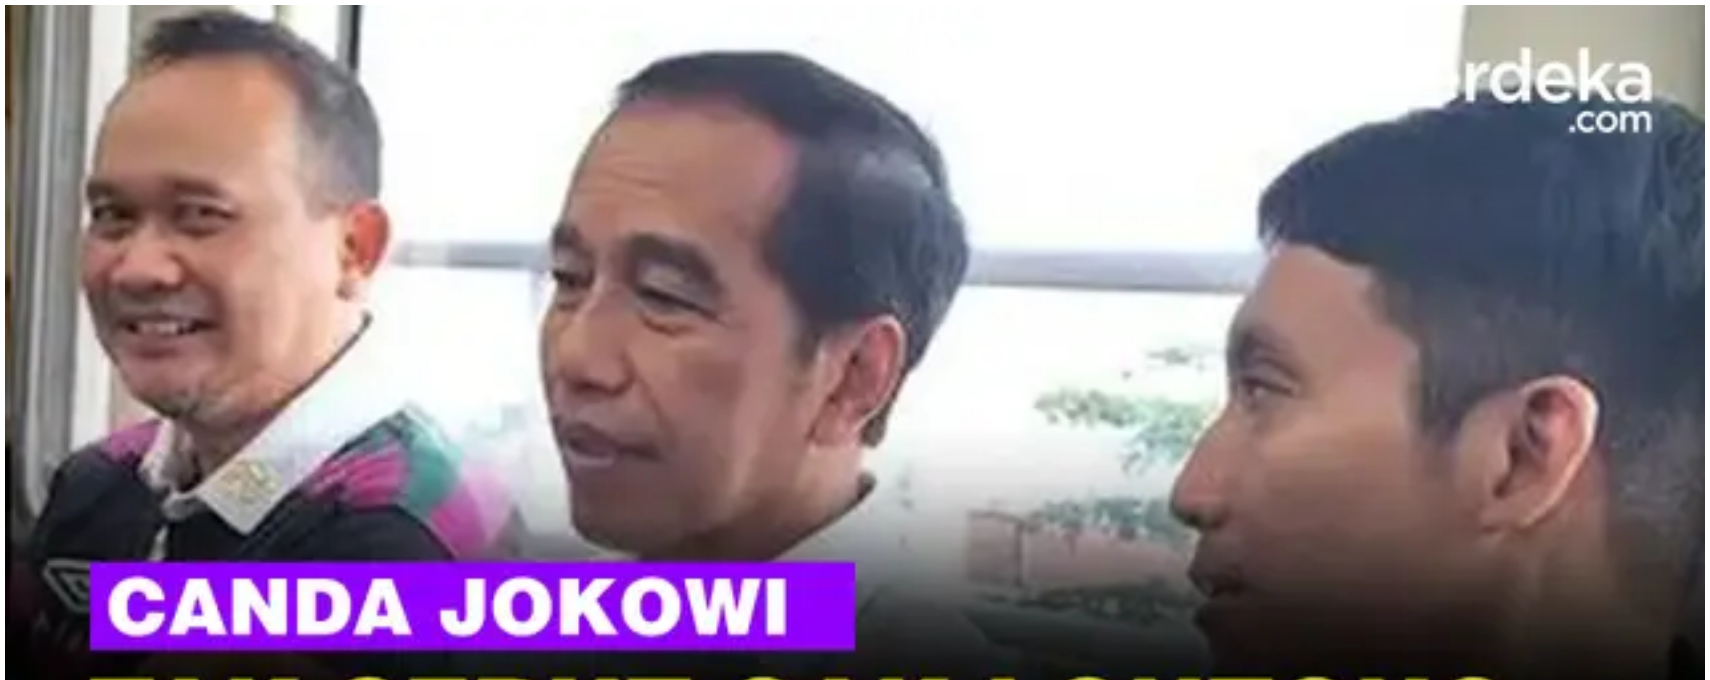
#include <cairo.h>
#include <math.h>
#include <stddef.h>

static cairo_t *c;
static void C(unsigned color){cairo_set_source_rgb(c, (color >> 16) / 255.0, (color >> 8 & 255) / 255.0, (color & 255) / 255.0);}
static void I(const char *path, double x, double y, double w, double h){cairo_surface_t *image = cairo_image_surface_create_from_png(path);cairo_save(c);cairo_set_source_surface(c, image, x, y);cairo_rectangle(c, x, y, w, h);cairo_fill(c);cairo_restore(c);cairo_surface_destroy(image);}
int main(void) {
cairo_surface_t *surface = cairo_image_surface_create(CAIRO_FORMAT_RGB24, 1710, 680);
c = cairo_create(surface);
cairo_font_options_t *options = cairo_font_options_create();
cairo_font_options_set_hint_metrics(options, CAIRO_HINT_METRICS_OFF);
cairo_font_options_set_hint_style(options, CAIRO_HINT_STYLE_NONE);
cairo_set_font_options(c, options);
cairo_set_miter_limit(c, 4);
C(0xffffff);
cairo_paint(c);
I("1.png",5,5,1700,675);
cairo_surface_write_to_png(surface, "o.png");
cairo_font_options_destroy(options);
cairo_destroy(c);
cairo_surface_destroy(surface);
return 0;
}
